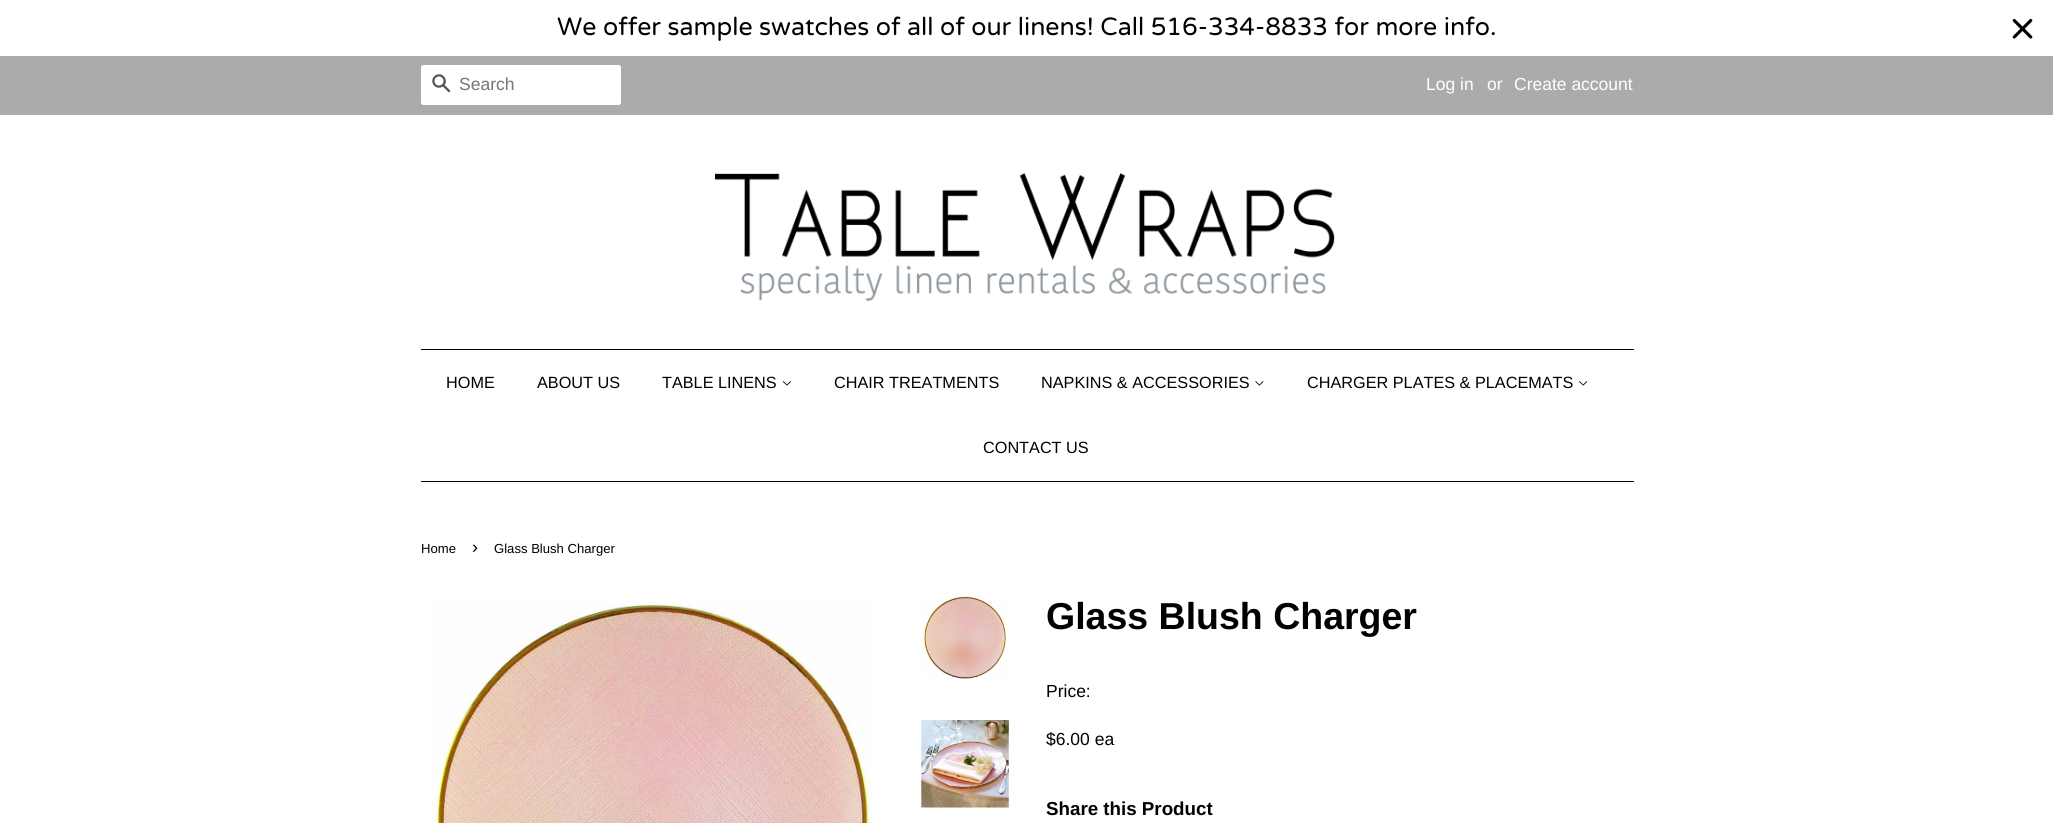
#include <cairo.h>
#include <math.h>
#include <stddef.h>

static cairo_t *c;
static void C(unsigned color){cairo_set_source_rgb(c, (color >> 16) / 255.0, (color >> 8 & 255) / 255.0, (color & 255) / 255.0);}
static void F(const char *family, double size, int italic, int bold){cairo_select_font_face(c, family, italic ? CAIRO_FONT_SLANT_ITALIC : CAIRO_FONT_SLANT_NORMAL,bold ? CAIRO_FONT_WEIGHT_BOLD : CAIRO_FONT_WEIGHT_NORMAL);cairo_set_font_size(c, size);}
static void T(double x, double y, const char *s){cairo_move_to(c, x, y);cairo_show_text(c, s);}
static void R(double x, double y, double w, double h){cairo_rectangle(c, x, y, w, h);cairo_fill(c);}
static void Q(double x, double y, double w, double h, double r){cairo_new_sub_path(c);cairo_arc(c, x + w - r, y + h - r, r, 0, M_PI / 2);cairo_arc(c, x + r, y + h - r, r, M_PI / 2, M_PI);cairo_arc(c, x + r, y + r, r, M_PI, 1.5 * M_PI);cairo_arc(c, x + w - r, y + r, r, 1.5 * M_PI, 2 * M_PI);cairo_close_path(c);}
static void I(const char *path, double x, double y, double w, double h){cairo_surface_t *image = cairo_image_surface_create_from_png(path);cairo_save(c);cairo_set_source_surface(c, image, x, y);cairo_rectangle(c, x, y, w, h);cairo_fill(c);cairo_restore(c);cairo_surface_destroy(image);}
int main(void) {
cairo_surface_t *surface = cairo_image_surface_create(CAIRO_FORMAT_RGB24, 2053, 823);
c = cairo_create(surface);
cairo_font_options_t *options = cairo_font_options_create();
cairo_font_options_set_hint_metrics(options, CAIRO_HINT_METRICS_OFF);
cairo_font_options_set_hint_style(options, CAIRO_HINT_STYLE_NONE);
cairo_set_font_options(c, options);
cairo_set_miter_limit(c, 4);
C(0xffffff);
cairo_paint(c);
F("Varela Round",25,0,0);
C(0x000000);
T(557,35,"We offer sample swatches of all of our linens! Call 516-334-8833 for more info.");
I("1.png",2012,18,21,21);
C(0xababab);
R(0,56,2053,59);
C(0xffffff);
Q(421,65,200,40,2.5);
cairo_fill(c);
I("2.png",432,74,19,19);
F("Liberation Sans",17.5,0,0);
C(0x757575);
T(459,90,"Search");
C(0xffffff);
T(1426,90,"Log in");
T(1487,90,"or");
T(1514,90,"Create account");
I("3.png",715,173,620,128);
C(0x000000);
R(421,349,1213,1);
R(421,481,1213,1);
F("Liberation Sans",16.25,0,0);
T(446,388,"HOME");
T(537,388,"ABOUT US");
T(662,388,"TABLE LINENS");
I("4.png",782,381,9,5);
T(834,388,"CHAIR TREATMENTS");
T(1041,388,"NAPKINS & ACCESSORIES");
I("5.png",1255,381,9,5);
T(1307,388,"CHARGER PLATES & PLACEMATS");
I("6.png",1579,381,9,5);
T(983,453,"CONTACT US");
F("Liberation Sans",13.1,0,0);
T(421,553,"Home");
F("Liberation Sans",18,0,0);
T(472,553,"›");
F("Liberation Sans",13.1,0,0);
T(494,553,"Glass Blush Charger");
I("7.png",432,602,441,221);
I("8.png",923,596,84,83);
I("9.png",921,720,88,88);
F("Liberation Sans",37.5,0,1);
T(1046,629,"Glass Blush Charger");
F("Liberation Sans",17.5,0,0);
T(1046,697,"Price:");
T(1046,745,"$6.00 ea");
F("Liberation Sans",18.75,0,1);
T(1046,815,"Share this Product");
cairo_surface_write_to_png(surface, "o.png");
cairo_font_options_destroy(options);
cairo_destroy(c);
cairo_surface_destroy(surface);
return 0;
}
